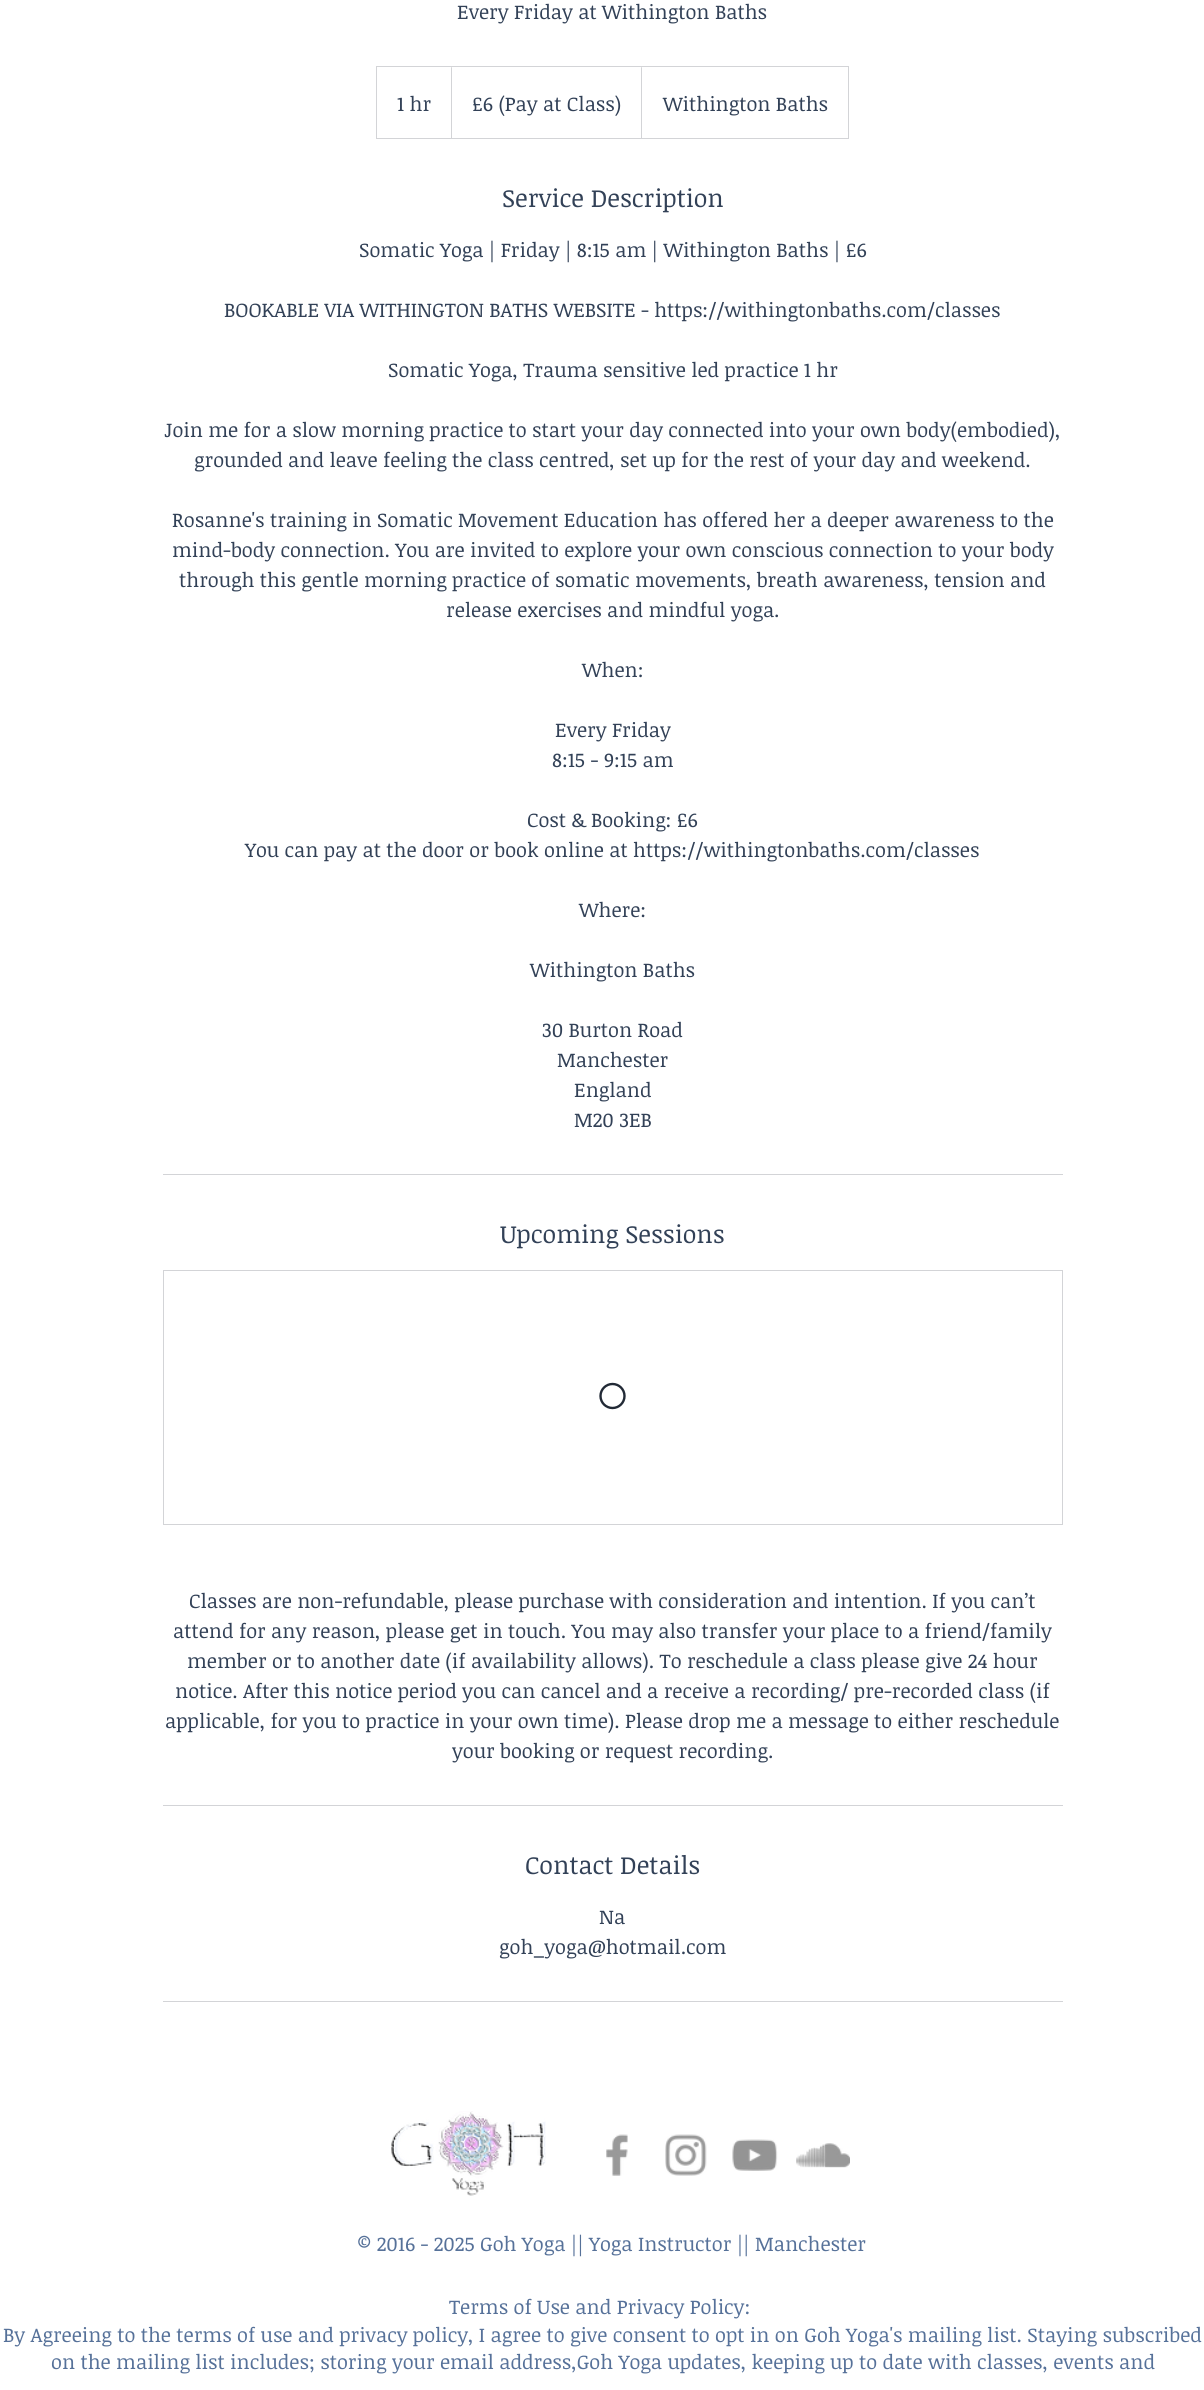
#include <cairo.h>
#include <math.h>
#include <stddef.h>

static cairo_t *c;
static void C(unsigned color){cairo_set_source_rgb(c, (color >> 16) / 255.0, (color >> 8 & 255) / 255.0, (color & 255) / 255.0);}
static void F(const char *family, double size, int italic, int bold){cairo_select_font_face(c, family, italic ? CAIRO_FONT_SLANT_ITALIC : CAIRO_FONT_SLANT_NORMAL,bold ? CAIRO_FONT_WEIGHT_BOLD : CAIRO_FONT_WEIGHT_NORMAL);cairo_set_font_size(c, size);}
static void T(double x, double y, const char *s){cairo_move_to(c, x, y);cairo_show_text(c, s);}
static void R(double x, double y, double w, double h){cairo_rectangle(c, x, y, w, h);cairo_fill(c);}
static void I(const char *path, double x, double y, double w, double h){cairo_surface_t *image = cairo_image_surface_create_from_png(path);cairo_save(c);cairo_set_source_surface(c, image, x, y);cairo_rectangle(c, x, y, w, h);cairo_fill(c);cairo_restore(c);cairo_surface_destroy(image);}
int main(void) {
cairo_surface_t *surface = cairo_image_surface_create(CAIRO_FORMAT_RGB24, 1204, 2390);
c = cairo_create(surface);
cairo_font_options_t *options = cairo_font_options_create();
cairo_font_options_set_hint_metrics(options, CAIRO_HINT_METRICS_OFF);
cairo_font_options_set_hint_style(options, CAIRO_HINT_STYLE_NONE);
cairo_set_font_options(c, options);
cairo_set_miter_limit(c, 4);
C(0xffffff);
cairo_paint(c);
F("Noticia Text",20,0,0);
C(0x324157);
T(457,19,"Every Friday at Withington Baths");
cairo_rectangle(c,376.5,66.5,472,72);
C(0xd3d4d7);
cairo_set_line_width(c,1);
cairo_stroke(c);
C(0x324157);
T(397,111,"1 hr");
C(0xd3d4d7);
cairo_new_path(c);
cairo_move_to(c,451,138);
cairo_line_to(c,451,66);
cairo_line_to(c,452,68);
cairo_line_to(c,452,138);
cairo_close_path(c);
cairo_fill(c);
C(0x324157);
T(472,111,"£6 (Pay at Class)");
C(0xd3d4d7);
cairo_new_path(c);
cairo_move_to(c,641,138);
cairo_line_to(c,641,66);
cairo_line_to(c,642,68);
cairo_line_to(c,642,138);
cairo_close_path(c);
cairo_fill(c);
C(0x324157);
T(663,111,"Withington Baths");
F("Noticia Text",25,0,0);
T(502,207,"Service Description");
F("Noticia Text",20,0,0);
T(359,257,"Somatic Yoga | Friday | 8:15 am | Withington Baths | £6");
T(224,317,"BOOKABLE VIA WITHINGTON BATHS WEBSITE - https://withingtonbaths.com/classes");
T(388,377,"Somatic Yoga, Trauma sensitive led practice 1 hr");
T(164,437,"Join me for a slow morning practice to start your day connected into your own body(embodied),");
T(194,467,"grounded and leave feeling the class centred, set up for the rest of your day and weekend.");
T(172,527,"Rosanne's training in Somatic Movement Education has offered her a deeper awareness to the");
T(172,557,"mind-body connection. You are invited to explore your own conscious connection to your body");
T(179,587,"through this gentle morning practice of somatic movements, breath awareness, tension and");
T(446,617,"release exercises and mindful yoga.");
T(582,677,"When:");
T(555,737,"Every Friday");
T(552,767,"8:15 - 9:15 am");
T(527,827,"Cost & Booking: £6");
T(245,857,"You can pay at the door or book online at https://withingtonbaths.com/classes");
T(579,917,"Where:");
T(530,977,"Withington Baths");
T(542,1037,"30 Burton Road");
T(557,1067,"Manchester");
T(574,1097,"England");
T(574,1127,"M20 3EB");
C(0xd3d4d7);
R(163,1174,900,1);
F("Noticia Text",25,0,0);
C(0x324157);
T(500,1243,"Upcoming Sessions");
cairo_rectangle(c,163.5,1270.5,899,254);
C(0xd3d4d7);
cairo_stroke(c);
cairo_arc(c,612.5,1396,12,0,2 * M_PI);
C(0x222a36);
cairo_set_line_width(c,2.4);
cairo_stroke(c);
F("Noticia Text",20,0,0);
C(0x324157);
T(189,1608,"Classes are non-refundable, please purchase with consideration and intention. If you can’t");
T(173,1638,"attend for any reason, please get in touch. You may also transfer your place to a friend/family");
T(187,1668,"member or to another date (if availability allows). To reschedule a class please give 24 hour");
T(175,1698,"notice. After this notice period you can cancel and a receive a recording/ pre-recorded class (if");
T(165,1728,"applicable, for you to practice in your own time). Please drop me a message to either reschedule");
T(452,1758,"your booking or request recording.");
C(0xd3d4d7);
R(163,1805,900,1);
F("Noticia Text",25,0,0);
C(0x324157);
T(525,1874,"Contact Details");
F("Noticia Text",20,0,0);
T(599,1924,"Na");
T(499,1954,"goh_yoga@hotmail.com");
C(0xd3d4d7);
R(163,2001,900,1);
I("1.png",391,2111,155,85);
I("2.png",606,2134,22,42);
I("3.png",665,2134,42,42);
I("4.png",732,2139,46,32);
I("5.png",796,2143,54,25);
C(0x567199);
T(357,2251,"© 2016 - 2025 Goh Yoga || Yoga Instructor || Manchester");
T(449,2314,"Terms of Use and Privacy Policy:");
T(3,2342,"By Agreeing to the terms of use and privacy policy, I agree to give consent to opt in on Goh Yoga's mailing list. Staying subscribed");
T(51,2369,"on the mailing list includes; storing your email address,Goh Yoga updates, keeping up to date with classes, events and");
cairo_surface_write_to_png(surface, "o.png");
cairo_font_options_destroy(options);
cairo_destroy(c);
cairo_surface_destroy(surface);
return 0;
}
